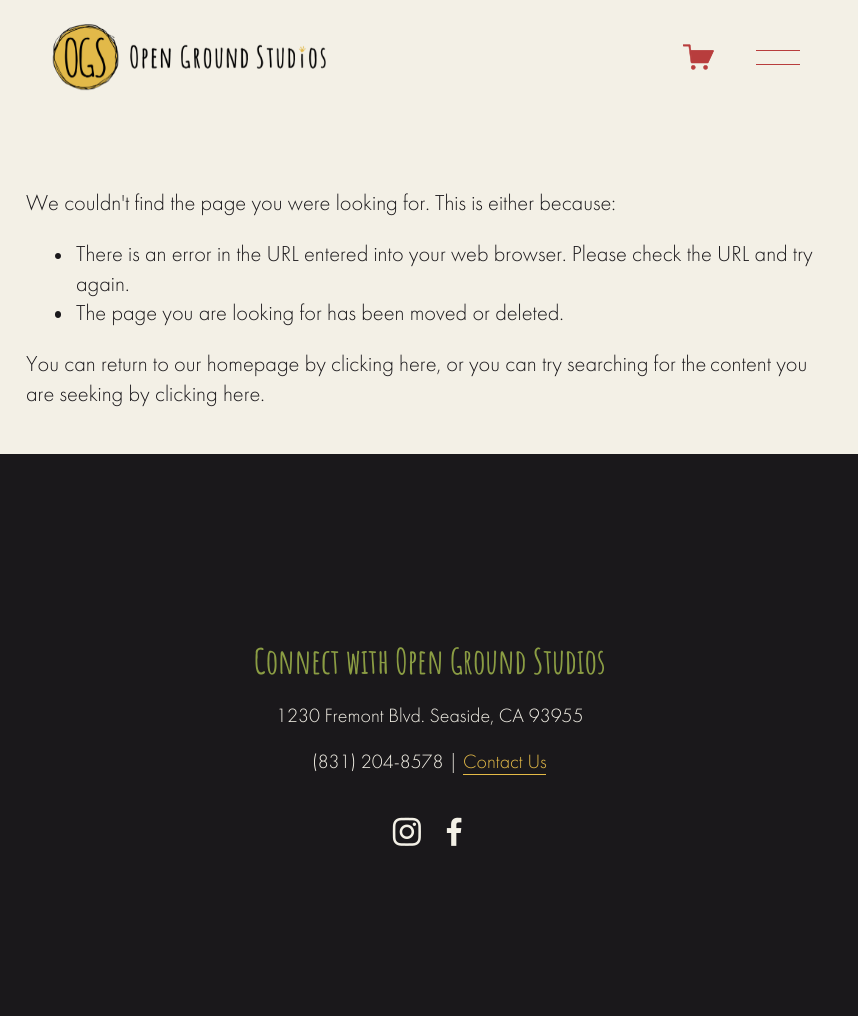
#include <cairo.h>
#include <math.h>
#include <stddef.h>

static cairo_t *c;
static void C(unsigned color){cairo_set_source_rgb(c, (color >> 16) / 255.0, (color >> 8 & 255) / 255.0, (color & 255) / 255.0);}
static void F(const char *family, double size, int italic, int bold){cairo_select_font_face(c, family, italic ? CAIRO_FONT_SLANT_ITALIC : CAIRO_FONT_SLANT_NORMAL,bold ? CAIRO_FONT_WEIGHT_BOLD : CAIRO_FONT_WEIGHT_NORMAL);cairo_set_font_size(c, size);}
static void T(double x, double y, const char *s){cairo_move_to(c, x, y);cairo_show_text(c, s);}
static void R(double x, double y, double w, double h){cairo_rectangle(c, x, y, w, h);cairo_fill(c);}
static void Q(double x, double y, double w, double h, double r){cairo_new_sub_path(c);cairo_arc(c, x + w - r, y + h - r, r, 0, M_PI / 2);cairo_arc(c, x + r, y + h - r, r, M_PI / 2, M_PI);cairo_arc(c, x + r, y + r, r, M_PI, 1.5 * M_PI);cairo_arc(c, x + w - r, y + r, r, 1.5 * M_PI, 2 * M_PI);cairo_close_path(c);}
static void I(const char *path, double x, double y, double w, double h){cairo_surface_t *image = cairo_image_surface_create_from_png(path);cairo_save(c);cairo_set_source_surface(c, image, x, y);cairo_rectangle(c, x, y, w, h);cairo_fill(c);cairo_restore(c);cairo_surface_destroy(image);}
int main(void) {
cairo_surface_t *surface = cairo_image_surface_create(CAIRO_FORMAT_RGB24, 858, 1016);
c = cairo_create(surface);
cairo_font_options_t *options = cairo_font_options_create();
cairo_font_options_set_hint_metrics(options, CAIRO_HINT_METRICS_OFF);
cairo_font_options_set_hint_style(options, CAIRO_HINT_STYLE_NONE);
cairo_set_font_options(c, options);
cairo_set_miter_limit(c, 4);
C(0xf3f0e6);
cairo_paint(c);
I("1.png",52,24,274,67);
I("2.png",683,44,31,26);
C(0xb83d3d);
R(756,50,44,1);
R(756,64,44,1);
F("Futura PT Light",22.45,0,0);
C(0x1a181b);
T(26,210,"We couldn't find the page you were looking for. This is either because:");
cairo_new_path(c);
cairo_arc(c,58,256,3,0,2 * M_PI);
cairo_fill(c);
T(76,261,"There is an error in the URL entered into your web browser. Please check the URL and try");
T(76,291,"again.");
Q(55,311,6,7,3);
cairo_fill(c);
T(76,320,"The page you are looking for has been moved or deleted.");
T(26,371,"You can return to our homepage by clicking here, or you can try searching for the");
T(710,371,"content you");
T(26,401,"are seeking by clicking here.");
R(0,454,858,562);
F("Amatic SC",34.6,0,1);
C(0x8b9d43);
T(254,674,"Connect with Open Ground Studios");
F("Futura PT Light",20,0,0);
C(0xf3f0e6);
T(276,722,"1230 Fremont Blvd. Seaside, CA 93955");
T(312,768,"(831) 204-8578 |");
C(0xe4ba47);
R(463,774,83,1);
T(463,768,"Contact Us");
I("3.png",392,817,29,29);
I("4.png",446,817,16,29);
cairo_surface_write_to_png(surface, "o.png");
cairo_font_options_destroy(options);
cairo_destroy(c);
cairo_surface_destroy(surface);
return 0;
}
